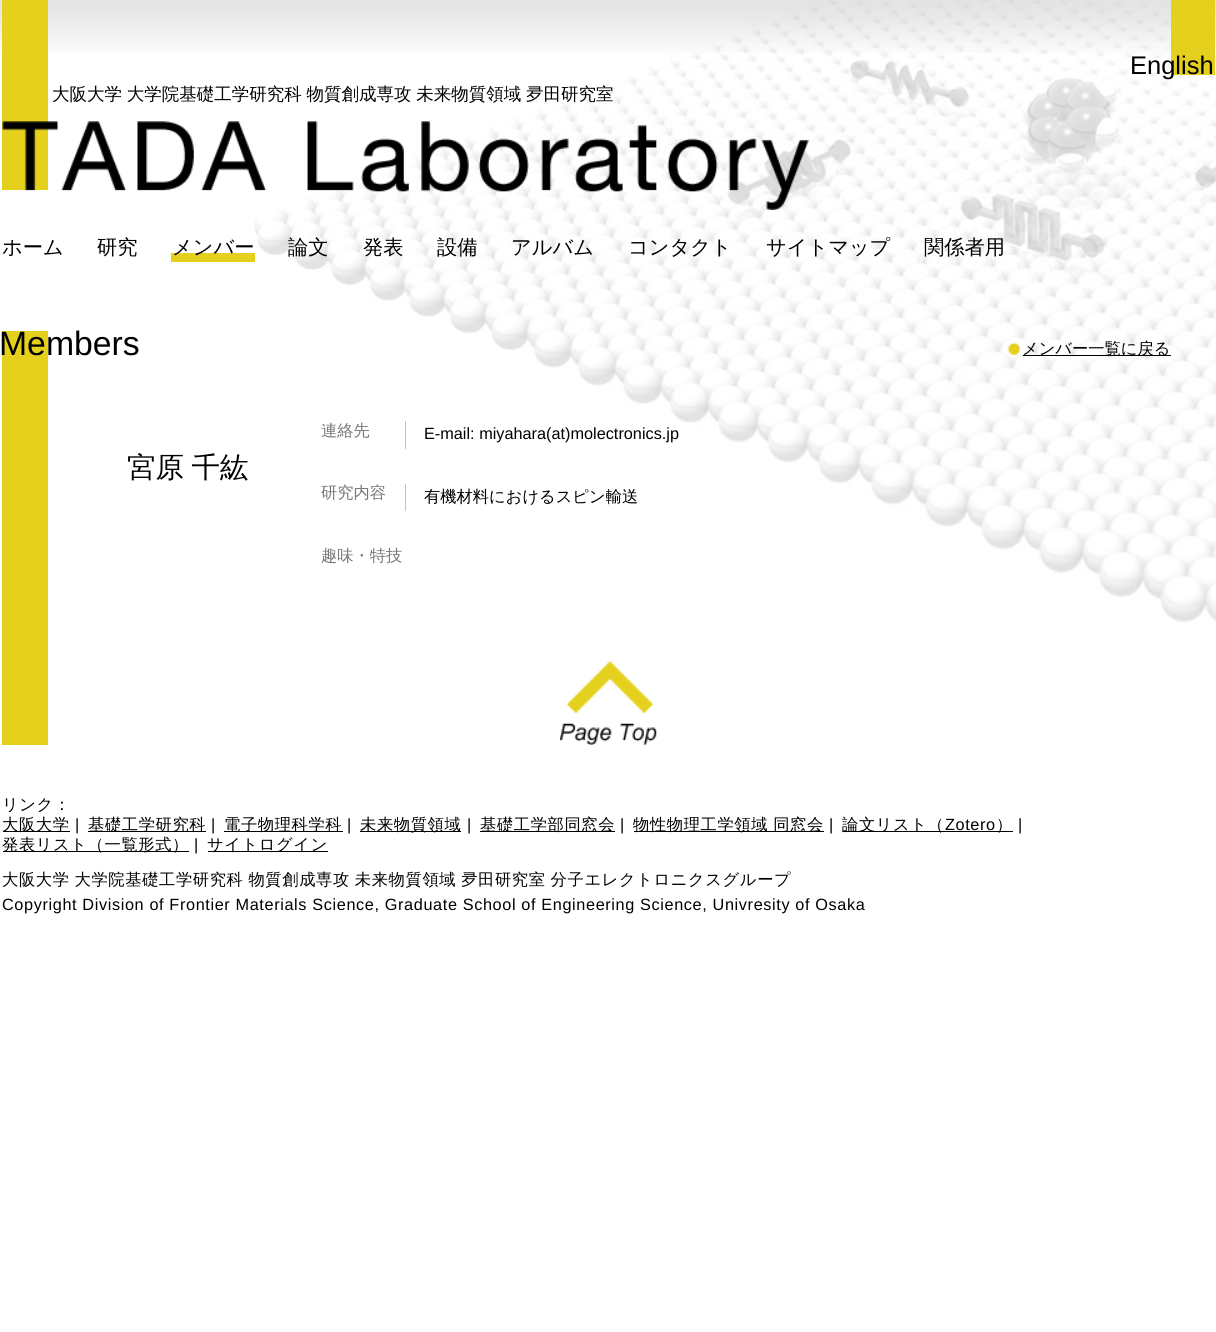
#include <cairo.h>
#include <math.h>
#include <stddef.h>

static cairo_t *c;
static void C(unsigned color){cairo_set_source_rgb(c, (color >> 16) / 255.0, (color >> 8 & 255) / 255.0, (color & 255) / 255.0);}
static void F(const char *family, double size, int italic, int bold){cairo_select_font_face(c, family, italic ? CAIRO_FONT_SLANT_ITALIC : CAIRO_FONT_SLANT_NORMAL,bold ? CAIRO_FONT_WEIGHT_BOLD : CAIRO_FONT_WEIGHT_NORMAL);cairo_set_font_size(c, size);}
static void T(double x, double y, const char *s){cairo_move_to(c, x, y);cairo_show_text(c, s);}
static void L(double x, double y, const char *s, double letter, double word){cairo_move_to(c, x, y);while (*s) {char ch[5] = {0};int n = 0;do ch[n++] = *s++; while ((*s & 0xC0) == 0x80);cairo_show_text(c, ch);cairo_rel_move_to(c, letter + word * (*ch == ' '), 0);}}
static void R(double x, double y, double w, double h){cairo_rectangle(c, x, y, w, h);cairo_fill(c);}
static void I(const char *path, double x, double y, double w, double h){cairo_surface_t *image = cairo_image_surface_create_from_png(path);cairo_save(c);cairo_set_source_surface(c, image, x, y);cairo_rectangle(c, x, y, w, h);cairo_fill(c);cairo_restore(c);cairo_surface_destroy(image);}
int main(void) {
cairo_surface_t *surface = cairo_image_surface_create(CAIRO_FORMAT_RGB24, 1216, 1332);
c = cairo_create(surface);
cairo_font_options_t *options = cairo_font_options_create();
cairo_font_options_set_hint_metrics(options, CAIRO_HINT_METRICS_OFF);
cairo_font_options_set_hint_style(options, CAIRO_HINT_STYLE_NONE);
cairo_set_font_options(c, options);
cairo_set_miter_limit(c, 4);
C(0xffffff);
cairo_paint(c);
I("1.png",254,0,962,623);
I("2.png",0,0,1216,53);
C(0xe5d01d);
R(1171,0,44,75);
F("Liberation Sans",25.5,0,0);
C(0x000000);
T(1130,74,"English");
C(0xe5d01d);
R(2,0,46,190);
F("WenQuanYi Zen Hei Medium",17.5,0,0);
C(0x000000);
L(52,100,"大阪大学 大学院基礎工学研究科 物質創成専攻 未来物質領域 夛田研究室",0,-.5);
I("3.png",2,121,807,89);
F("WenQuanYi Zen Hei Medium",20.25,0,0);
T(2,254,"ホーム");
T(97,254,"研究");
C(0xe5d01d);
R(171,253,84,9);
C(0x000000);
T(172,254,"メンバー");
T(288,254,"論文");
T(363,254,"発表");
T(437,254,"設備");
T(511,254,"アルバム");
T(628,254,"コンタクト");
T(766,254,"サイトマップ");
T(924,254,"関係者用");
C(0xe5d01d);
R(2,331,46,414);
F("Liberation Sans",33.75,0,0);
C(0x000000);
T(-1,355,"Members");
I("4.png",1007,342,13,13);
R(1023,355,148,1);
F("WenQuanYi Zen Hei Medium",16.27,0,0);
T(1022,354,"メンバー一覧に戻る");
F("WenQuanYi Zen Hei Medium",28.5,0,0);
L(127,477,"宮原 千紘",0,-1);
F("WenQuanYi Zen Hei Medium",16.27,0,0);
C(0x787878);
T(321,436,"連絡先");
C(0xe5d01d);
R(405,421,1,28);
F("Liberation Sans",16.27,0,0);
C(0x000000);
T(424,439,"E-mail: miyahara(at)molectronics.jp");
F("WenQuanYi Zen Hei Medium",16.27,0,0);
C(0x787878);
T(321,498,"研究内容");
C(0xe5d01d);
R(405,484,1,27);
C(0x000000);
T(424,502,"有機材料におけるスピン輸送");
C(0x787878);
T(321,561,"趣味・特技");
I("5.png",560,661,97,84);
C(0x000000);
L(2,810,"リンク：",.62,0);
R(3,831,67,1);
L(2,830,"大阪大学",.62,0);
F("Liberation Sans",16.27,0,0);
L(75,830,"|",.62,0);
R(88,831,118,1);
F("WenQuanYi Zen Hei Medium",16.27,0,0);
L(88,830,"基礎工学研究科",.62,0);
F("Liberation Sans",16.27,0,0);
L(211,830,"|",.62,0);
R(224,831,119,1);
F("WenQuanYi Zen Hei Medium",16.27,0,0);
L(224,830,"電子物理科学科",.62,0);
F("Liberation Sans",16.27,0,0);
L(347,830,"|",.62,0);
R(360,831,101,1);
F("WenQuanYi Zen Hei Medium",16.27,0,0);
L(360,830,"未来物質領域",.62,0);
F("Liberation Sans",16.27,0,0);
L(467,830,"|",.62,0);
R(480,831,135,1);
F("WenQuanYi Zen Hei Medium",16.27,0,0);
L(480,830,"基礎工学部同窓会",.62,0);
F("Liberation Sans",16.27,0,0);
L(620,830,"|",.62,0);
R(634,831,190,1);
F("WenQuanYi Zen Hei Medium",16.27,0,0);
L(633,830,"物性物理工学領域 同窓会",.62,-.5);
F("Liberation Sans",16.27,0,0);
L(829,830,"|",.62,0);
R(843,831,170,1);
F("WenQuanYi Zen Hei Medium",16.27,0,0);
L(842,830,"論文リスト（",.62,0);
F("Liberation Sans",16.27,0,0);
L(945,830,"Zotero",.62,0);
F("WenQuanYi Zen Hei Medium",16.27,0,0);
L(996,830,"）",.62,0);
F("Liberation Sans",16.27,0,0);
L(1018,830,"|",.62,0);
R(3,851,186,1);
F("WenQuanYi Zen Hei Medium",16.27,0,0);
L(2,850,"発表リスト（一覧形式）",.62,0);
F("Liberation Sans",16.27,0,0);
L(194,850,"|",.62,0);
R(208,851,120,1);
F("WenQuanYi Zen Hei Medium",16.27,0,0);
L(207,850,"サイトログイン",.62,0);
L(2,885,"大阪大学 大学院基礎工学研究科 物質創成専攻 未来物質領域 夛田研究室 分子エレクトロニクスグループ",.62,-.5);
F("Liberation Sans",16.27,0,0);
L(2,910,"Copyright Division of Frontier Materials Science, Graduate School of Engineering Science, Univresity of Osaka",.62,0);
cairo_surface_write_to_png(surface, "o.png");
cairo_font_options_destroy(options);
cairo_destroy(c);
cairo_surface_destroy(surface);
return 0;
}
